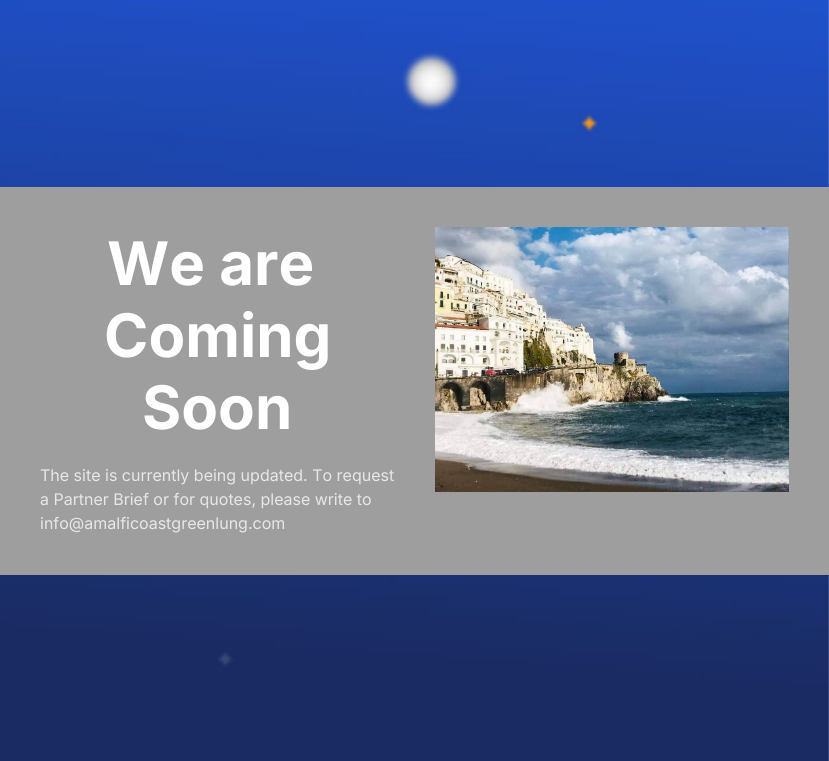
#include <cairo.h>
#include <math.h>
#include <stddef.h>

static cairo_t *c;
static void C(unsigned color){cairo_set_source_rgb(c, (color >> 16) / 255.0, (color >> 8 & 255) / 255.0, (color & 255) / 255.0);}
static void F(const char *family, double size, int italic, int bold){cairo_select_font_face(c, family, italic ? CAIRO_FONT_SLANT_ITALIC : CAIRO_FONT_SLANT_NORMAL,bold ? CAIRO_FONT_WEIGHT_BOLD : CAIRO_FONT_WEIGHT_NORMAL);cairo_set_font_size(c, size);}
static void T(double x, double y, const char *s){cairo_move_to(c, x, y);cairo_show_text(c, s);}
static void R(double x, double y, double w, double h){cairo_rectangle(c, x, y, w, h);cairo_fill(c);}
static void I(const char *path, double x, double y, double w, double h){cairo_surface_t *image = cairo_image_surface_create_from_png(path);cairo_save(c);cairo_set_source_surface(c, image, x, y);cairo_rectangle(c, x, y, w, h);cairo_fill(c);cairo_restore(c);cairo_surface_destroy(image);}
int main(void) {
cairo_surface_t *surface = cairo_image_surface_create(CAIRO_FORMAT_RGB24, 829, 761);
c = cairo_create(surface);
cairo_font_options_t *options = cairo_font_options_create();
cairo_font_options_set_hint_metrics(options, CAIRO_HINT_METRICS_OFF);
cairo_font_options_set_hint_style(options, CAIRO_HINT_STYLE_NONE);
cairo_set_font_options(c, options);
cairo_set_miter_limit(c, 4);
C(0xffffff);
cairo_paint(c);
I("1.png",0,0,829,761);
C(0x9e9e9e);
R(0,187,829,388);
F("Inter",60,0,1);
C(0xffffff);
T(107,285,"We are");
T(104,357,"Coming");
T(142,429,"Soon");
F("Inter",16,0,0);
C(0xe7e7e7);
T(40,481,"The site is currently being updated. To request");
T(40,505,"a Partner Brief or for quotes, please write to");
T(40,529,"info@amalficoastgreenlung.com");
I("2.png",435,227,354,265);
cairo_surface_write_to_png(surface, "o.png");
cairo_font_options_destroy(options);
cairo_destroy(c);
cairo_surface_destroy(surface);
return 0;
}
